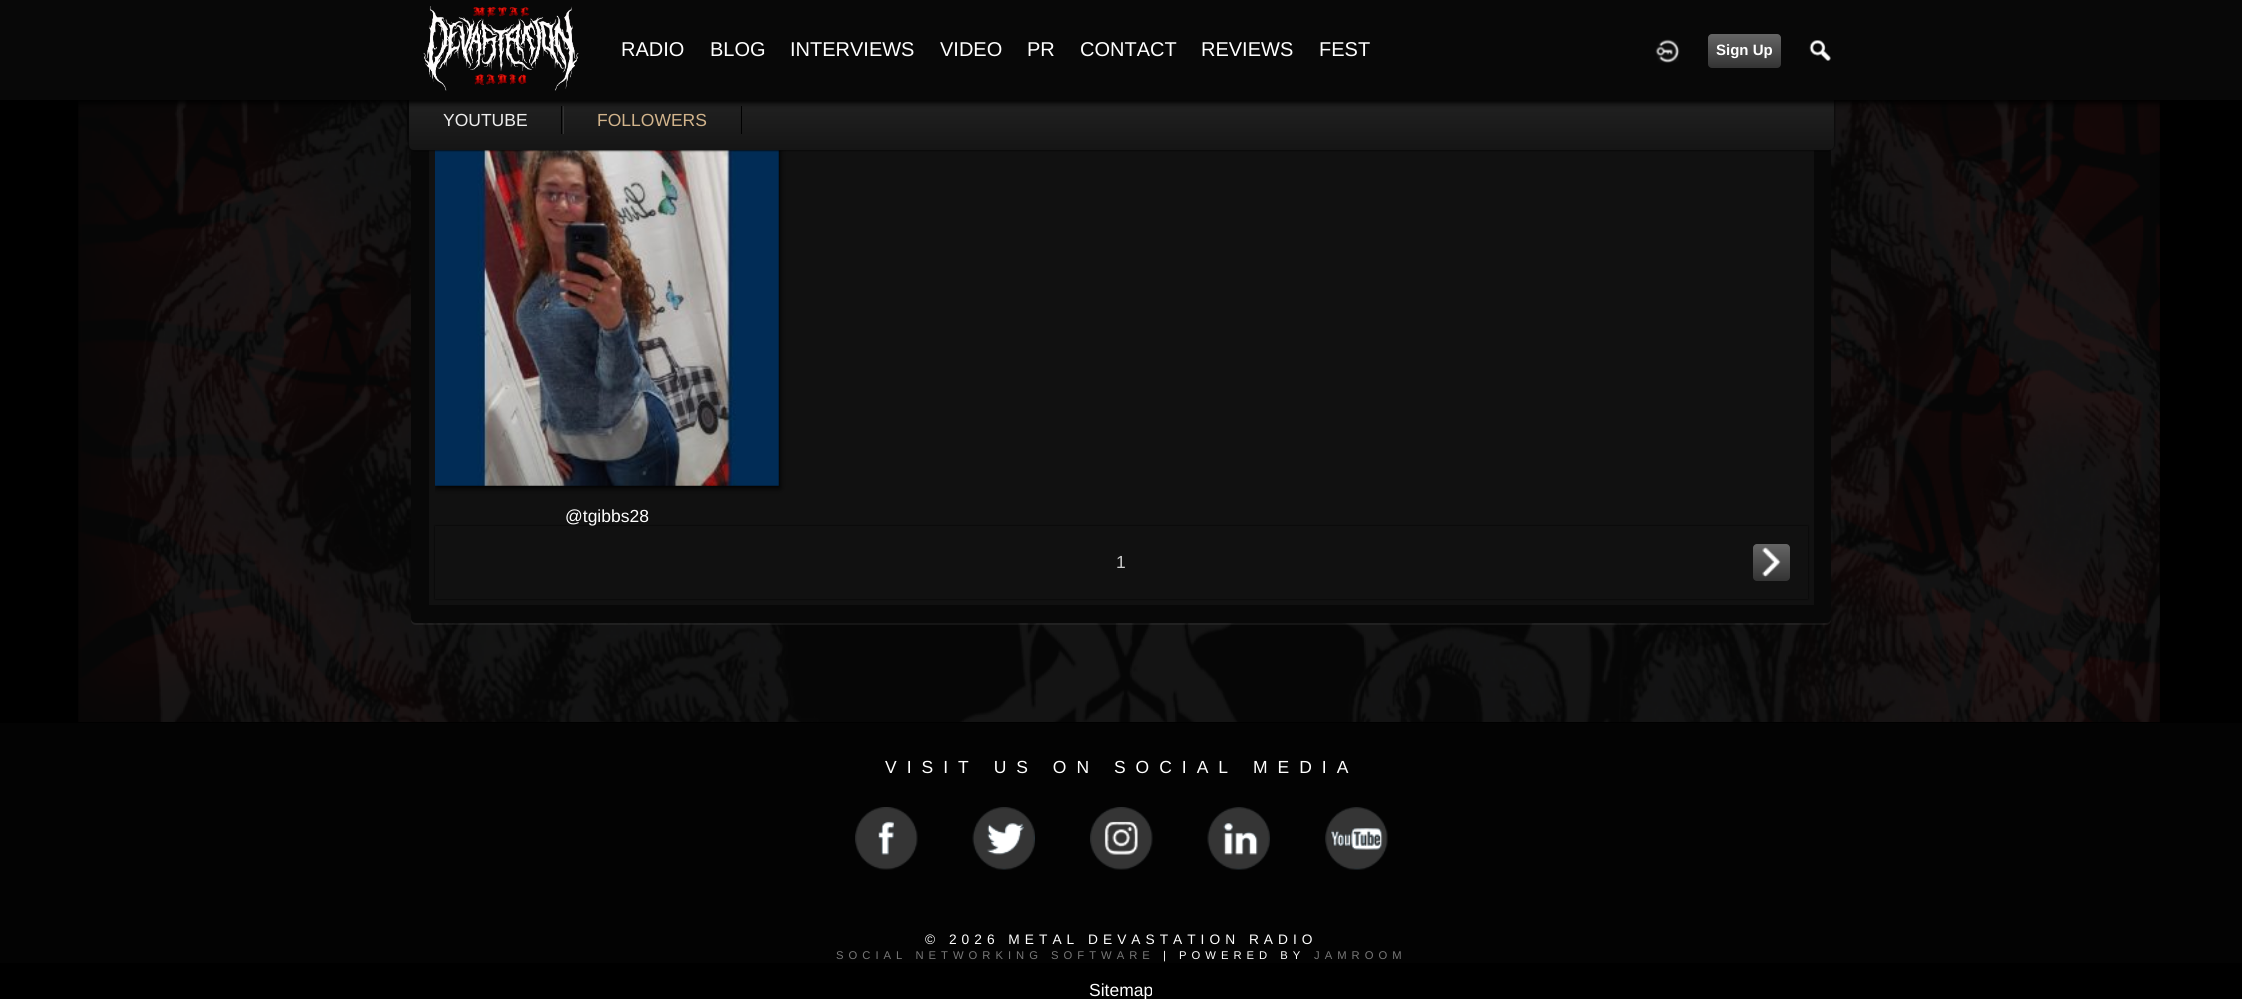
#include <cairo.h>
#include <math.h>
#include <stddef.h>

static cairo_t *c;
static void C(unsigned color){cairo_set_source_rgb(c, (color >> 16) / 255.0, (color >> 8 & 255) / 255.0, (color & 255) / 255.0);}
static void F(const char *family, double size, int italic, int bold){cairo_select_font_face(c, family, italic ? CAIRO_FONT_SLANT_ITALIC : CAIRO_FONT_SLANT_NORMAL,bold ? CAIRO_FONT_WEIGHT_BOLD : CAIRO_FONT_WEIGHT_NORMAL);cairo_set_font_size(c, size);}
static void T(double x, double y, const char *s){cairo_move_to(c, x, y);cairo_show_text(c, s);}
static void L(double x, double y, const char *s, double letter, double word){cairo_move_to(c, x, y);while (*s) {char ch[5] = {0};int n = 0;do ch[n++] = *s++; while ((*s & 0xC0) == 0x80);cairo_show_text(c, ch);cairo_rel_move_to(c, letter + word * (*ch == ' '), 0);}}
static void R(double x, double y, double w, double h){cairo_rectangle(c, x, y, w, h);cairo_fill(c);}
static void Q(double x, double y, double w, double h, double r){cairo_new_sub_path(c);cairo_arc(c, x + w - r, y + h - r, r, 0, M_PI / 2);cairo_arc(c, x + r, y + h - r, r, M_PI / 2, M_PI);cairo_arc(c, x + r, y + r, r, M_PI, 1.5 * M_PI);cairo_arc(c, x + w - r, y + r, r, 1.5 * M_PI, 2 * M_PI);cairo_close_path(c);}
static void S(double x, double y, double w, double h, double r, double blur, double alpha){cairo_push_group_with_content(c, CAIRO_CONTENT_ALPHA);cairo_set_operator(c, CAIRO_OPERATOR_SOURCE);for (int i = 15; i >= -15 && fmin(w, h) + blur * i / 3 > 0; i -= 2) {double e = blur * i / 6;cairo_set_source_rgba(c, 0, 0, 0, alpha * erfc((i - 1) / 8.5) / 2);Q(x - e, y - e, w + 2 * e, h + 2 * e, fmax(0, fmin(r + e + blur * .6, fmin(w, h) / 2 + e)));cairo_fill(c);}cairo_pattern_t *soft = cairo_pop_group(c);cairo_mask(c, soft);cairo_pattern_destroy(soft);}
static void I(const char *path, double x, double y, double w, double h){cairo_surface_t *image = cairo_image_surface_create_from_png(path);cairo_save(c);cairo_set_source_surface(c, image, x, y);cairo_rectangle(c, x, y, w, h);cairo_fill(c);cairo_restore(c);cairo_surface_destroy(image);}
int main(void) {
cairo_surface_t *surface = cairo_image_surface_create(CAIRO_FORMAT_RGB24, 2242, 999);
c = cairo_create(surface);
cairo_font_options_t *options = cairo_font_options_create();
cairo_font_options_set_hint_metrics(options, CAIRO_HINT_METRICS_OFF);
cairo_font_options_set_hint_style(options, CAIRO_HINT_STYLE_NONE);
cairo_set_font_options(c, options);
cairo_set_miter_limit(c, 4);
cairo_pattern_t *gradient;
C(0x000000);
cairo_paint(c);
I("1.png",78,100,2082,622);
cairo_set_source_rgba(c,1,1,1,0.06);
cairo_new_path(c);
cairo_move_to(c,411,-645);
cairo_line_to(c,411,620);
cairo_curve_to(c,411,623,413,625,416,625);
cairo_line_to(c,1826,625);
cairo_curve_to(c,1829,625,1831,623,1831,620);
cairo_line_to(c,1831,619);
cairo_curve_to(c,1830,621,1828,622,1826,622);
cairo_line_to(c,416,622);
cairo_curve_to(c,413,622,411,620,411,618);
cairo_close_path(c);
cairo_fill(c);
C(0x080808);
cairo_new_path(c);
cairo_move_to(c,411,-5);
cairo_line_to(c,1826,-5);
cairo_curve_to(c,1829,-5,1831,-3,1831,0);
cairo_line_to(c,1831,618);
cairo_curve_to(c,1831,621,1829,623,1826,623);
cairo_line_to(c,416,623);
cairo_curve_to(c,413,623,411,621,411,618);
cairo_close_path(c);
cairo_fill(c);
C(0x111111);
R(429,150,1385,455);
cairo_save(c);
cairo_rectangle(c,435,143,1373,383);
cairo_clip(c);
C(0x000000);
S(436,144,344,344,0,3,1);
cairo_restore(c);
I("5.png",435,150,344,336);
C(0x050505);
S(409,88,1425,62,5,1,1);
S(409,88,1425,62,5,1,1);
gradient = cairo_pattern_create_linear(1121,87,1121,150);
cairo_pattern_add_color_stop_rgba(gradient,0,0.145,0.145,0.145,1);
cairo_pattern_add_color_stop_rgba(gradient,1,0.082,0.082,0.082,1);
cairo_set_source(c,gradient);
cairo_pattern_destroy(gradient);
cairo_new_path(c);
cairo_move_to(c,409,88);
cairo_line_to(c,1834,88);
cairo_line_to(c,1834,145);
cairo_curve_to(c,1834,148,1832,150,1829,150);
cairo_line_to(c,414,150);
cairo_curve_to(c,411,150,409,148,409,145);
cairo_close_path(c);
cairo_fill(c);
C(0x000000);
R(561,106,1,28);
R(741,106,1,28);
C(0x333333);
R(563,106,1,28);
C(0x000000);
S(0,3,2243,100,0,3,1);
C(0x080808);
R(0,0,2242,100);
I("2.png",423,6,156,85);
F("Liberation Sans",20,0,0);
C(0xffffff);
T(621,56,"RADIO");
T(710,56,"BLOG");
T(790,56,"INTERVIEWS");
T(940,56,"VIDEO");
T(1027,56,"PR");
T(1080,56,"CONTACT");
T(1201,56,"REVIEWS");
T(1319,56,"FEST");
I("3.png",1655,39,25,24);
gradient = cairo_pattern_create_linear(1744,34,1744,68);
cairo_pattern_add_color_stop_rgba(gradient,0,0.4,0.4,0.4,1);
cairo_pattern_add_color_stop_rgba(gradient,1,0.2,0.2,0.2,1);
cairo_set_source(c,gradient);
cairo_pattern_destroy(gradient);
Q(1708,34,73,34,4);
cairo_fill(c);
F("Liberation Sans",15,0,1);
C(0xffffff);
T(1716,55,"Sign Up");
I("4.png",1809,40,22,21);
F("Liberation Sans",17.5,0,0);
C(0xeeeeee);
T(443,126,"YOUTUBE");
C(0xd2b48c);
T(597,126,"FOLLOWERS");
C(0x000000);
S(435,526,1373,73,0,1,1);
C(0xffffff);
T(565,522,"@tgibbs28");
C(0x111111);
R(435,526,1373,73);
C(0xcccccc);
T(1116,568,"1");
gradient = cairo_pattern_create_linear(1771,544,1771,581);
cairo_pattern_add_color_stop_rgba(gradient,0,0.4,0.4,0.4,1);
cairo_pattern_add_color_stop_rgba(gradient,1,0.2,0.2,0.2,1);
cairo_set_source(c,gradient);
cairo_pattern_destroy(gradient);
Q(1753,544,37,37,4);
cairo_fill(c);
I("6.png",1762,547,19,31);
C(0x030303);
R(0,723,2242,240);
C(0xffffff);
L(885,773,"VISIT US ON SOCIAL MEDIA",10,0);
I("7.png",855,807,63,63);
I("8.png",972,807,63,63);
I("9.png",1090,807,63,63);
I("10.png",1207,807,63,63);
I("11.png",1325,807,63,63);
F("Liberation Sans",13.75,0,0);
L(925,944,"© 2026 METAL DEVASTATION RADIO",5,0);
F("Liberation Sans",11.25,0,0);
C(0x777777);
L(836,959,"SOCIAL NETWORKING SOFTWARE",5,0);
C(0xffffff);
L(1163,959,"| POWERED BY",5,0);
C(0x777777);
L(1314,959,"JAMROOM",5,0);
F("Liberation Sans",17.5,0,0);
C(0xffffff);
T(1089,996,"Sitemap");
cairo_surface_write_to_png(surface, "o.png");
cairo_font_options_destroy(options);
cairo_destroy(c);
cairo_surface_destroy(surface);
return 0;
}
